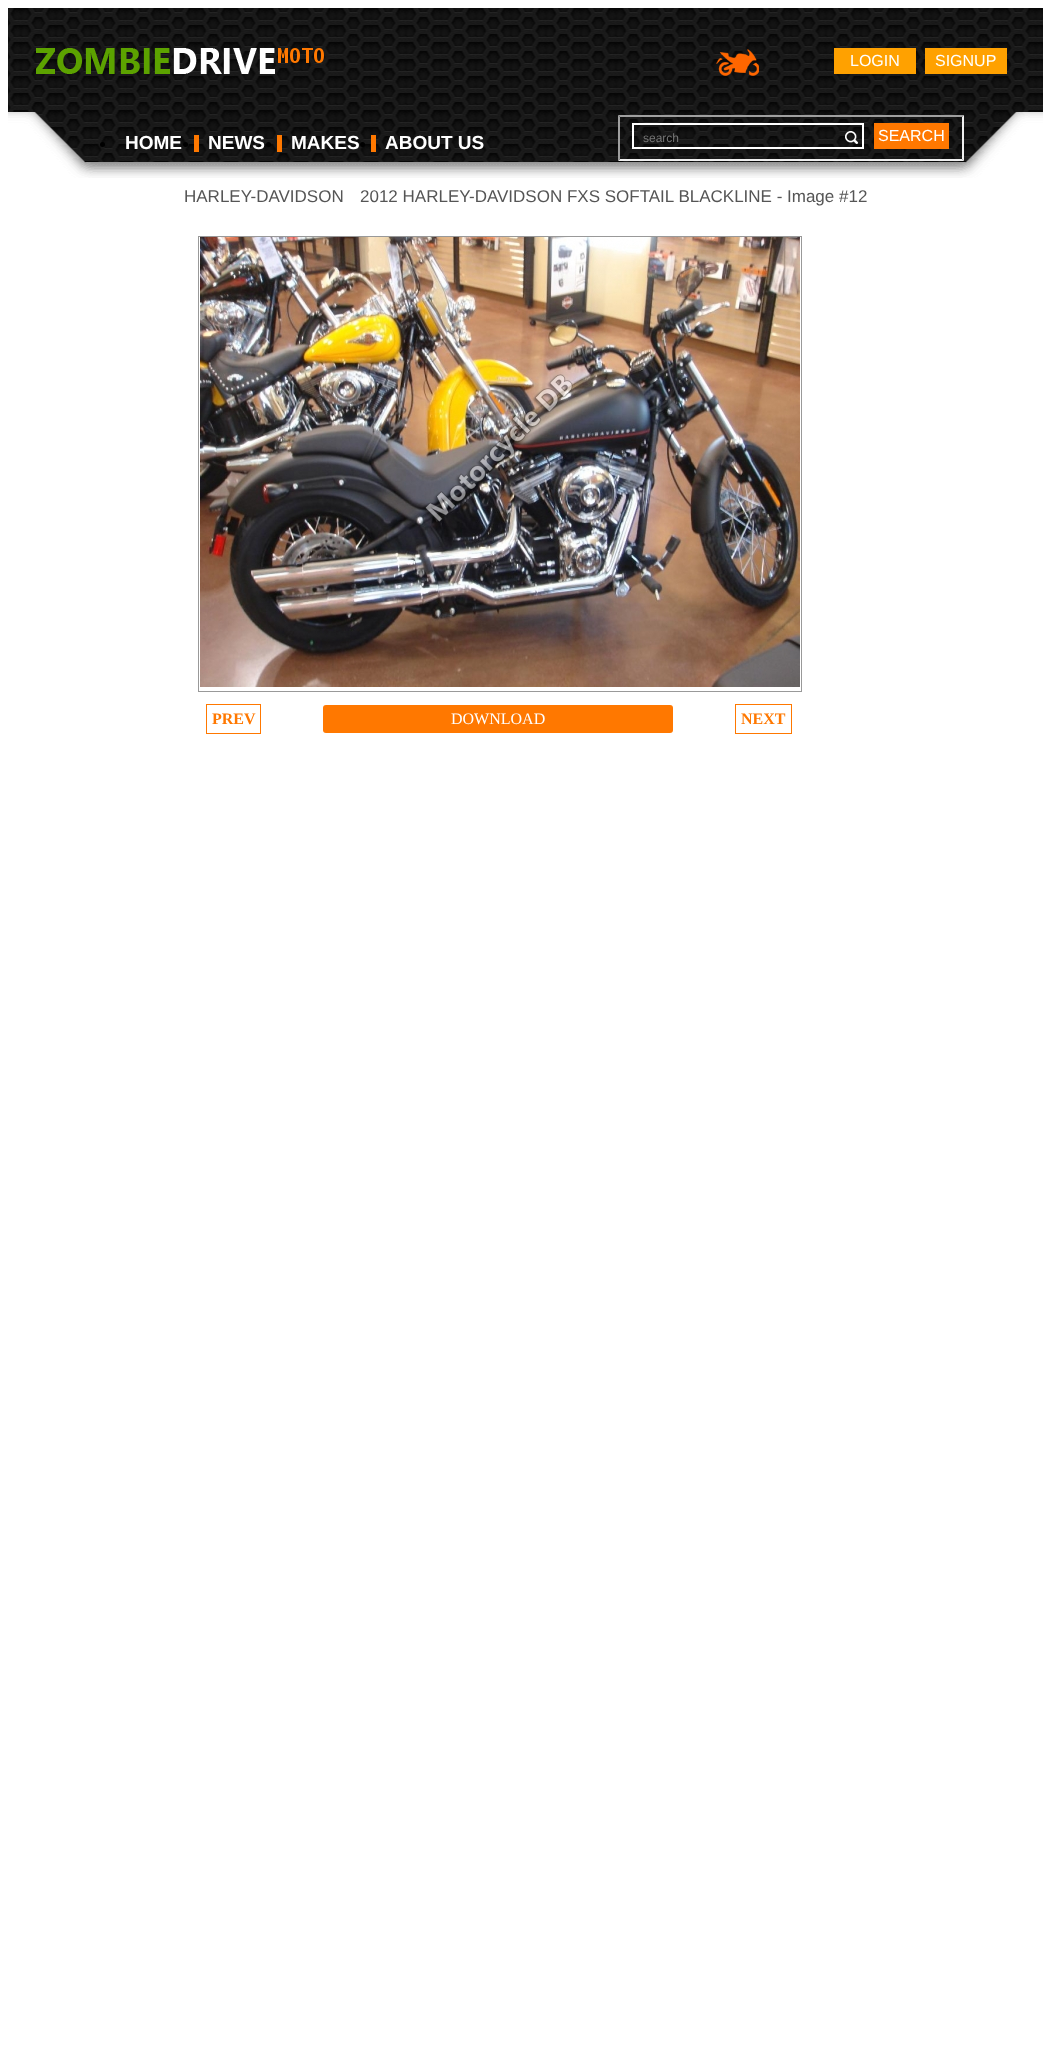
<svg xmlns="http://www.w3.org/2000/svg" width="1051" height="2046">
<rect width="100%" height="100%" fill="#fff"/>
<image x="8" y="8" width="1035" height="170" href="media/1.png"/>
<image x="36" y="48" width="288" height="26" href="media/2.png"/>
<image x="716" y="49" width="43" height="27" href="media/3.png"/>
<rect x="834" y="48" width="82" height="26" fill="#ffa100"/>
<text x="850" y="66" style="font-family:Liberation Sans;font-size:16px;fill:#fff">LOGIN</text>
<rect x="925" y="48" width="82" height="26" fill="#ffa100"/>
<text x="935" y="66" style="font-family:Liberation Sans;font-size:16px;fill:#fff">SIGNUP</text>
<circle cx="102.5" cy="144.5" r="2.5" fill="#000"/>
<text x="125" y="149" style="font-family:Liberation Sans;font-size:19px;font-weight:bold;fill:#fff">HOME</text>
<rect x="194" y="135" width="5" height="17" fill="#ff7800"/>
<circle cx="185.5" cy="144.5" r="2.5" fill="#000"/>
<text x="208" y="149" style="font-family:Liberation Sans;font-size:19px;font-weight:bold;fill:#fff">NEWS</text>
<rect x="277" y="135" width="5" height="17" fill="#ff7800"/>
<circle cx="268.5" cy="144.5" r="2.5" fill="#000"/>
<text x="291" y="149" style="font-family:Liberation Sans;font-size:19px;font-weight:bold;fill:#fff">MAKES</text>
<rect x="371" y="135" width="5" height="17" fill="#ff7800"/>
<circle cx="362.5" cy="144.5" r="2.5" fill="#000"/>
<text x="385" y="149" style="font-family:Liberation Sans;font-size:19px;font-weight:bold;fill:#fff">ABOUT US</text>
<path d="M618 115h346l-2 2h-342z" fill="#9f9f9f"/>
<path d="M964 115v46l-2-2v-42z" fill="#efefef"/>
<path d="M964 161h-346l2-2h342z" fill="#efefef"/>
<path d="M618 161v-46l2 2v42z" fill="#9f9f9f"/>
<rect x="633" y="124" width="230" height="24" fill="none" stroke="#fff" stroke-width="2"/>
<image x="845" y="131" width="13" height="13" href="media/4.png"/>
<text x="643" y="142" style="font-family:Liberation Sans;font-size:12px;fill:#757575">search</text>
<rect x="874" y="123" width="75" height="26" fill="#ff7800"/>
<text x="878" y="141" style="font-family:Liberation Sans;font-size:16px;fill:#fff">SEARCH</text>
<text x="184" y="202" style="font-family:Liberation Sans;font-size:17px;fill:#555">HARLEY-DAVIDSON</text>
<text x="360" y="202" style="font-family:Liberation Sans;font-size:17px;fill:#555">2012 HARLEY-DAVIDSON FXS SOFTAIL BLACKLINE - Image #12</text>
<rect x="198.5" y="236.5" width="603" height="455" fill="none" stroke="#999"/>
<image x="200" y="237" width="600" height="450" href="media/5.png"/>
<rect x="206.5" y="704.5" width="54" height="29" fill="none" stroke="#ff7800"/>
<text x="212" y="724" style="font-family:Liberation Serif;font-size:16px;font-weight:bold;fill:#ff7800">PREV</text>
<rect x="323" y="705" width="350" height="28" rx="3" fill="#ff7800"/>
<text x="451" y="724" style="font-family:Liberation Serif;font-size:16px;fill:#fff">DOWNLOAD</text>
<rect x="735.5" y="704.5" width="56" height="29" fill="none" stroke="#ff7800"/>
<text x="741" y="724" style="font-family:Liberation Serif;font-size:16px;font-weight:bold;fill:#ff7800">NEXT</text>
</svg>
